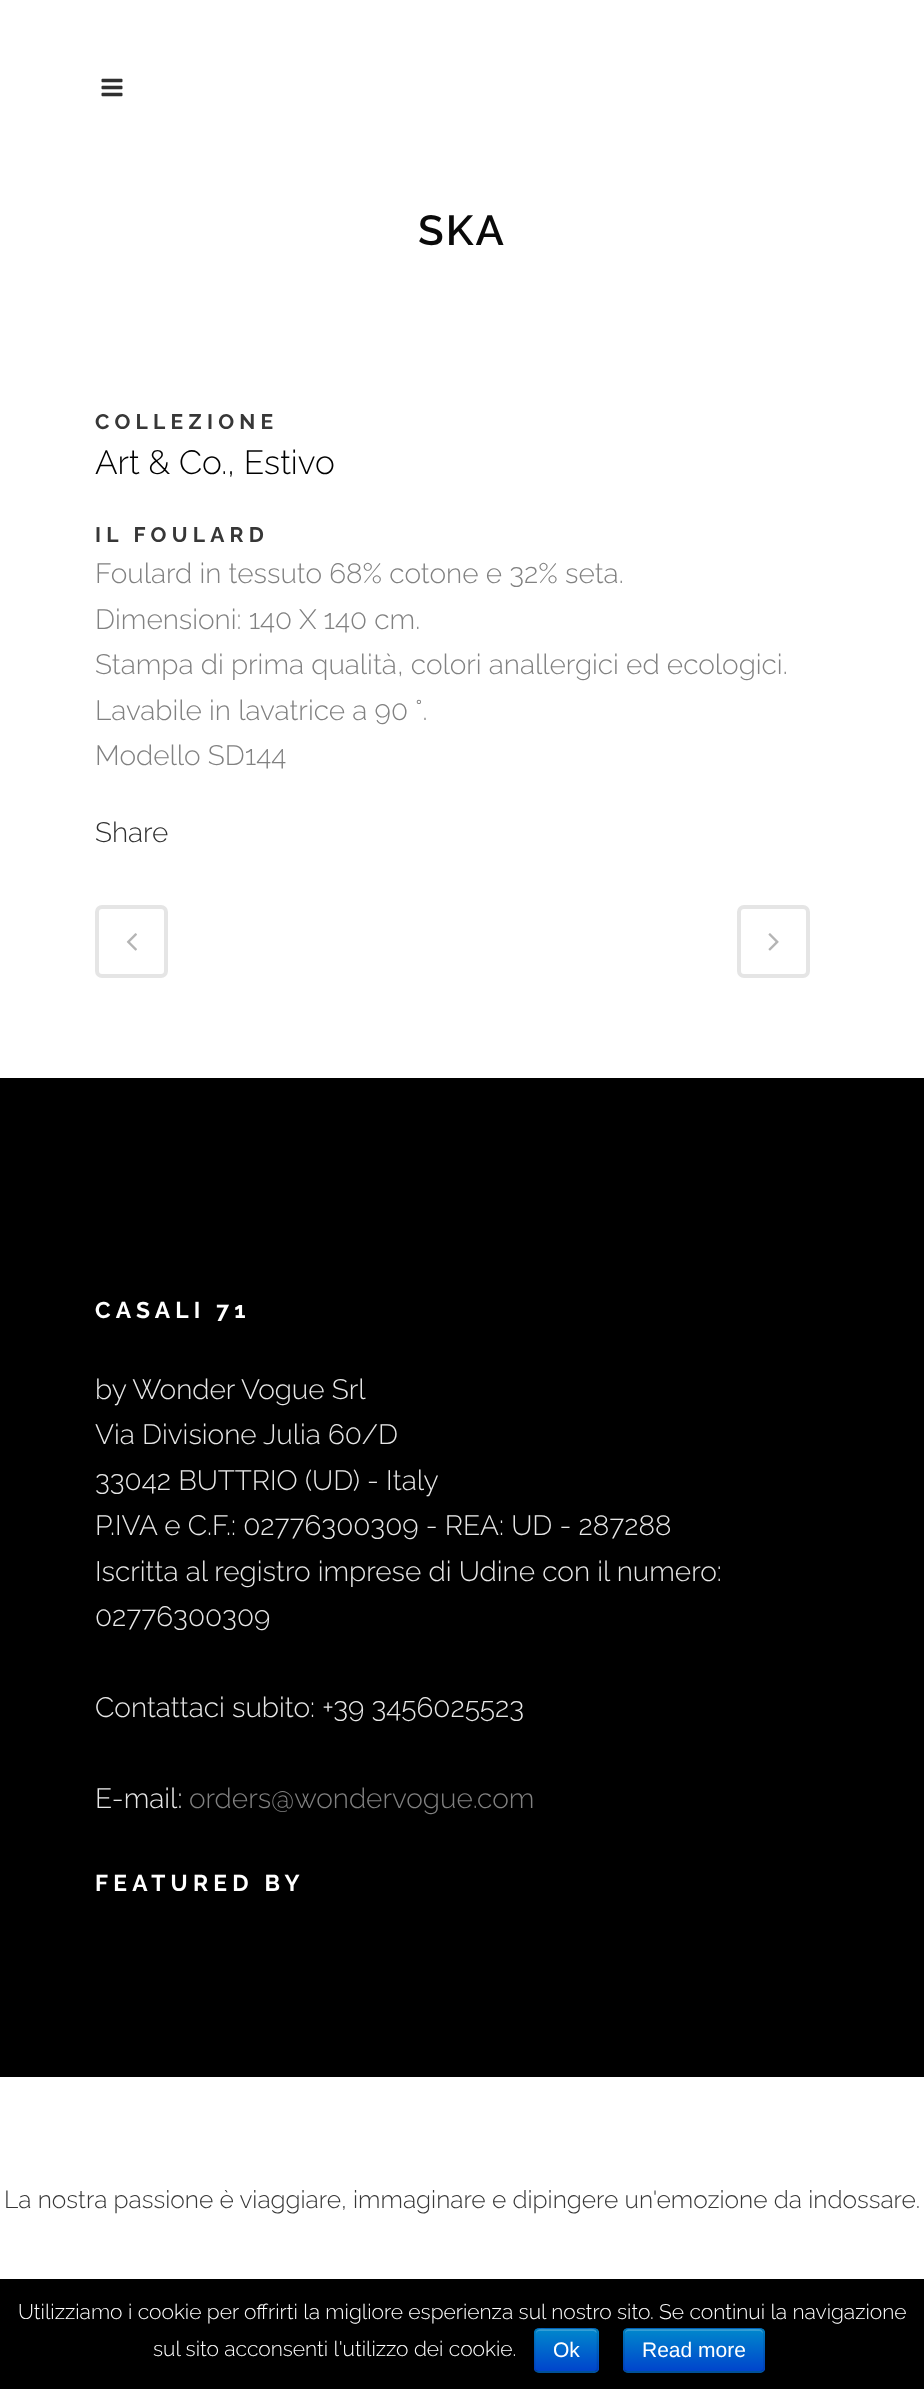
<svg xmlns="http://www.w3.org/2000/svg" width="924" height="2389">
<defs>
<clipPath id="clip1"><rect x="534" y="2328" width="65" height="45" rx="5"/></clipPath>
<linearGradient id="g1" gradientUnits="userSpaceOnUse" x1="566" y1="2329" x2="566" y2="2371"><stop offset="0" stop-color="#08c"/><stop offset="1" stop-color="#04c"/></linearGradient>
<clipPath id="clip2"><rect x="623" y="2328" width="142" height="45" rx="5"/></clipPath>
<linearGradient id="g2" gradientUnits="userSpaceOnUse" x1="694" y1="2329" x2="694" y2="2371"><stop offset="0" stop-color="#08c"/><stop offset="1" stop-color="#04c"/></linearGradient>
</defs>
<rect width="100%" height="100%" fill="#fff"/>
<image x="101" y="78" width="22" height="19" href="media/1.png"/>
<text x="418" y="245" style="font-family:Raleway;font-size:42px;font-weight:600;letter-spacing:2px;fill:#0a0a0a">SKA</text>
<text x="95" y="429" style="font-family:Raleway;font-size:21px;font-weight:bold;letter-spacing:5.25px;fill:#373737">COLLEZIONE</text>
<text x="95" y="474" style="font-family:Raleway;font-size:33.5px;font-weight:300;fill:#000">Art &amp; Co., Estivo</text>
<text x="95" y="542" style="font-family:Raleway;font-size:21px;font-weight:bold;letter-spacing:5.25px;fill:#373737">IL FOULARD</text>
<text x="95" y="583" style="font-family:Raleway;font-size:28px;font-weight:300;fill:#818181">Foulard in tessuto 68% cotone e 32% seta.</text>
<text x="95" y="629" style="font-family:Raleway;font-size:28px;font-weight:300;fill:#818181">Dimensioni: 140 X 140 cm.</text>
<text x="95" y="674" style="font-family:Raleway;font-size:28px;font-weight:300;fill:#818181">Stampa di prima qualità, colori anallergici ed ecologici.</text>
<text x="95" y="720" style="font-family:Raleway;font-size:28px;font-weight:300;fill:#818181">Lavabile in lavatrice a 90 °.</text>
<text x="95" y="765" style="font-family:Raleway;font-size:28px;font-weight:300;fill:#818181">Modello SD144</text>
<text x="95" y="842" style="font-family:Raleway;font-size:28px;font-weight:300;fill:#303030">Share</text>
<rect x="97" y="907" width="69" height="69" rx="5" fill="none" stroke="#e5e5e5" stroke-width="4"/>
<image x="126" y="933" width="11" height="18" href="media/2.png"/>
<rect x="739" y="907" width="69" height="69" rx="5" fill="none" stroke="#e5e5e5" stroke-width="4"/>
<image x="768" y="933" width="11" height="18" href="media/3.png"/>
<rect y="1078" width="924" height="999" fill="#000"/>
<text x="95" y="1318" style="font-family:Raleway;font-size:22.75px;font-weight:bold;letter-spacing:5.25px;fill:#fff">CASALI 71</text>
<text x="95" y="1399" style="font-family:Raleway;font-size:28px;font-weight:300;fill:#e8e8e8">by Wonder Vogue Srl</text>
<text x="95" y="1444" style="font-family:Raleway;font-size:28px;font-weight:300;fill:#e8e8e8">Via Divisione Julia 60/D</text>
<text x="95" y="1490" style="font-family:Raleway;font-size:28px;font-weight:300;fill:#e8e8e8">33042 BUTTRIO (UD) - Italy</text>
<text x="95" y="1535" style="font-family:Raleway;font-size:28px;font-weight:300;fill:#e8e8e8">P.IVA e C.F.: 02776300309 - REA: UD - 287288</text>
<text x="95" y="1581" style="font-family:Raleway;font-size:28px;font-weight:300;fill:#e8e8e8">Iscritta al registro imprese di Udine con il numero:</text>
<text x="95" y="1626" style="font-family:Raleway;font-size:28px;font-weight:300;fill:#e8e8e8">02776300309</text>
<text x="95" y="1717" style="font-family:Raleway;font-size:28px;font-weight:300;fill:#e8e8e8">Contattaci subito: +39 3456025523</text>
<text x="95" y="1808" style="font-family:Raleway;font-size:28px;font-weight:300;fill:#e8e8e8">E-mail:</text>
<text x="189" y="1808" style="font-family:Raleway;font-size:28px;font-weight:300;fill:#818181">orders@wondervogue.com</text>
<text x="95" y="1891" style="font-family:Raleway;font-size:22.75px;font-weight:bold;letter-spacing:5.25px;fill:#fff">FEATURED BY</text>
<text x="4" y="2208" style="font-family:Raleway;font-size:24.5px;font-weight:300;fill:#373737">La nostra passione è viaggiare, immaginare e dipingere un'emozione da indossare.</text>
<rect y="2279" width="924" height="110" fill="#000"/>
<text x="18" y="2319" style="font-family:Raleway;font-size:21px;font-weight:300;fill:#fff">Utilizziamo i cookie per offrirti la migliore esperienza sul nostro sito. Se continui la navigazione</text>
<text x="153" y="2356" style="font-family:Raleway;font-size:21px;font-weight:300;fill:#fff">sul sito acconsenti l'utilizzo dei cookie.</text>
<rect x="534" y="2328" width="65" height="45" rx="5" fill="#006dcc"/>
<g clip-path="url(#clip1)">
<rect x="534" y="2329" width="65" height="42" fill="url(#g1)"/>
</g>
<path d="M539 2331h54c2 0 4 2 4 3c0-7-8-5-13-5h-35c-5 0-13-2-13 5c0-1 1-3 3-3z" fill="#ffffff33"/>
<path d="M596.5 2371c-1 .5-2 1-3.5 1h-54c-1 0-2.5-.5-3-1" fill="none" stroke="#00000040" stroke-width="1.8"/>
<path d="M536 2371c-1-1-1.5-2-1.5-3v-35c0-1.5 .5-2.5 1.5-3.5c.5-.5 2-1 3-1h54c1.5 0 2.5 .5 3.5 1c.5 1 1 2 1 3.5v35c0 1-.5 2-1 3" fill="none" stroke="#0000001a" stroke-width="1.8"/>
<text x="553" y="2357" style="font-family:Liberation Sans;font-size:21px;fill:#fff">Ok</text>
<rect x="623" y="2328" width="142" height="45" rx="5" fill="#006dcc"/>
<g clip-path="url(#clip2)">
<rect x="623" y="2329" width="142" height="42" fill="url(#g2)"/>
</g>
<path d="M628 2331h132c1 0 3 2 3 3v-1c0-2-2-4-4-4h-130c-2 0-4 2-4 4v1c0-1 1-3 3-3z" fill="#ffffff33"/>
<path d="M762.5 2371l-3 1h-131.5l-3-1" fill="none" stroke="#00000040" stroke-width="1.8"/>
<path d="M625 2371c-2.5-3-1-12-1-15v-17.5c0-3.5-1-10 4-10h109.5c30 0 26.5-5.5 26.5 21.5v12c0 2.5 1 6.5-1.5 9" fill="none" stroke="#0000001a" stroke-width="1.8"/>
<text x="642" y="2357" style="font-family:Liberation Sans;font-size:21px;fill:#fff">Read more</text>
</svg>
